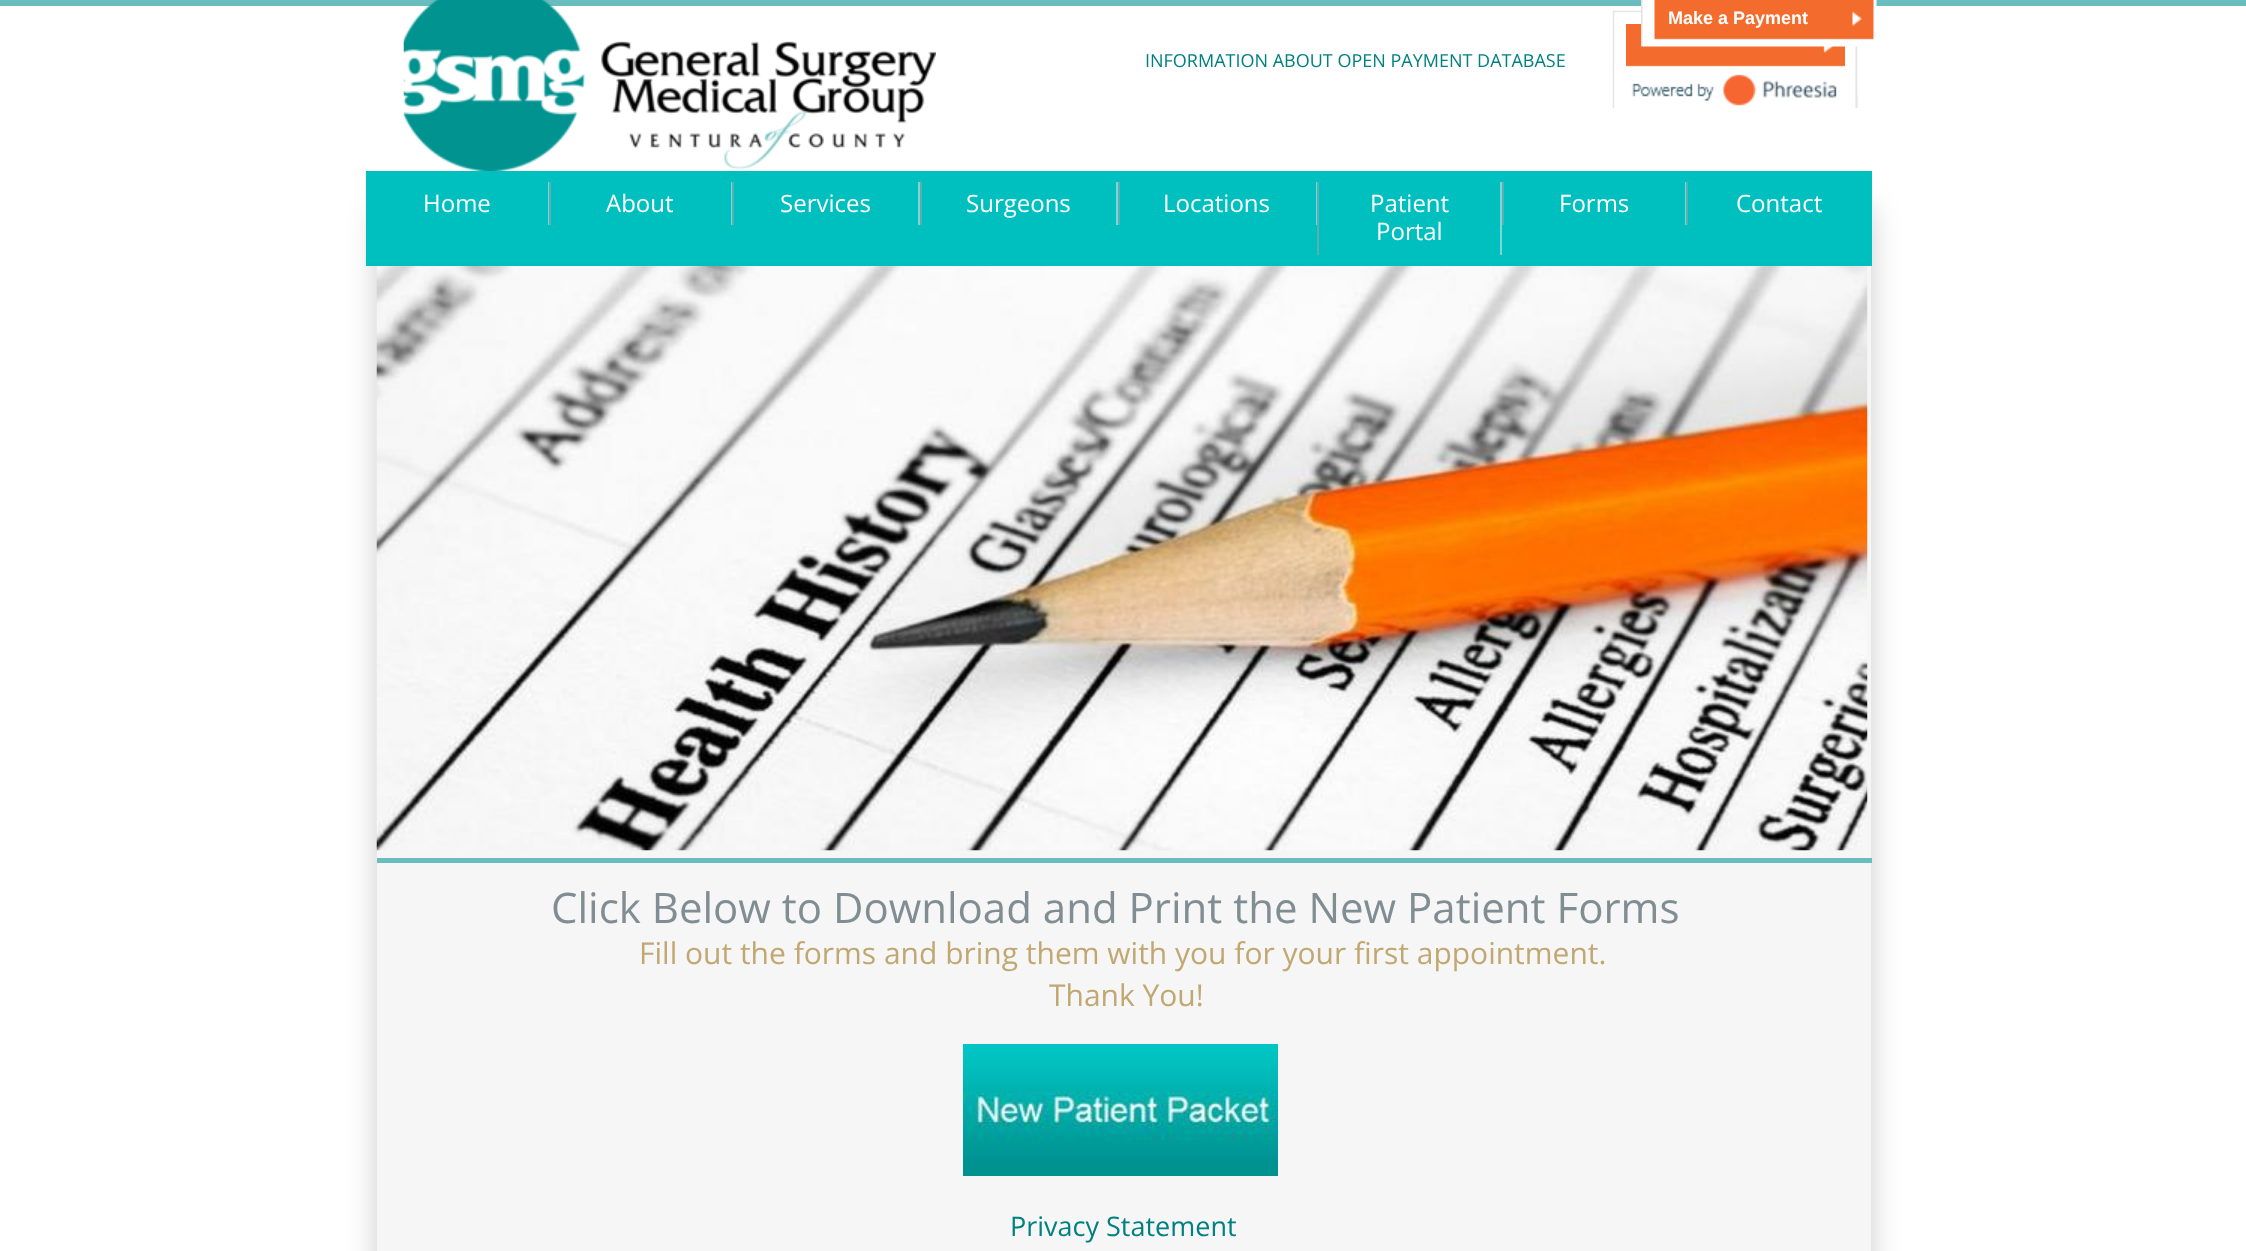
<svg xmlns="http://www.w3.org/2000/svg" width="2246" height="1251">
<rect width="100%" height="100%" fill="#69bdbe"/>
<rect y="6" width="2246" height="1245" fill="#fff"/>
<rect x="377" y="207" width="1494" height="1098" rx="9" fill="#00000033" filter="blur(15px)"/>
<rect x="377" y="266" width="1494" height="985" fill="#f6f6f6"/>
<image x="403" y="0" width="533" height="171" href="media/1.png"/>
<image x="1612" y="10" width="247" height="98" href="media/2.png"/>
<image x="1626" y="24" width="219" height="43" href="media/3.png"/>
<image x="1641" y="0" width="236" height="47" href="media/4.png"/>
<image x="1654" y="0" width="220" height="40" href="media/5.png"/>
<text x="1668" y="24" style="font-family:Liberation Sans;font-size:18px;font-weight:bold;fill:#fff">Make a Payment</text>
<text x="1145" y="67" style="font-family:Open Sans;font-size:18px;fill:#008080">INFORMATION ABOUT OPEN PAYMENT DATABASE</text>
<rect x="366" y="171" width="1506" height="95" fill="#00bfbf"/>
<rect x="548" y="182" width="1" height="43" fill="#7bd6d7"/>
<text x="423" y="212" style="font-family:Open Sans;font-size:24px;fill:#fff">Home</text>
<rect x="731" y="182" width="1" height="43" fill="#7bd6d7"/>
<rect x="549" y="182" width="2" height="43" fill="#5cafb0"/>
<text x="606" y="212" style="font-family:Open Sans;font-size:24px;fill:#fff">About</text>
<rect x="918" y="182" width="2" height="43" fill="#7bd6d7"/>
<rect x="732" y="182" width="2" height="43" fill="#5cafb0"/>
<text x="780" y="212" style="font-family:Open Sans;font-size:24px;fill:#fff">Services</text>
<rect x="1116" y="182" width="2" height="43" fill="#7bd6d7"/>
<rect x="920" y="182" width="2" height="43" fill="#5cafb0"/>
<text x="966" y="212" style="font-family:Open Sans;font-size:24px;fill:#fff">Surgeons</text>
<rect x="1316" y="182" width="1" height="43" fill="#7bd6d7"/>
<rect x="1118" y="182" width="2" height="43" fill="#5cafb0"/>
<text x="1163" y="212" style="font-family:Open Sans;font-size:24px;fill:#fff">Locations</text>
<rect x="1500" y="182" width="2" height="73" fill="#7bd6d7"/>
<rect x="1317" y="182" width="2" height="73" fill="#5cafb0"/>
<text x="1370" y="212" style="font-family:Open Sans;font-size:24px;fill:#fff">Patient</text>
<text x="1376" y="240" style="font-family:Open Sans;font-size:24px;fill:#fff">Portal</text>
<rect x="1685" y="182" width="1" height="43" fill="#7bd6d7"/>
<rect x="1502" y="182" width="2" height="43" fill="#5cafb0"/>
<text x="1559" y="212" style="font-family:Open Sans;font-size:24px;fill:#fff">Forms</text>
<rect x="1686" y="182" width="2" height="43" fill="#5cafb0"/>
<text x="1736" y="212" style="font-family:Open Sans;font-size:24px;fill:#fff">Contact</text>
<image x="376" y="266" width="1492" height="585" href="media/6.png"/>
<rect x="377" y="858" width="1495" height="5" fill="#69bdbe"/>
<text x="551" y="923" style="font-family:Open Sans;font-size:42px;fill:#808e94">Click Below to Download and Print the New Patient Forms</text>
<text x="639" y="964" style="font-family:Open Sans;font-size:30px;fill:#c1a872">Fill out the forms and bring them with you for your first appointment.</text>
<text x="1049" y="1006" style="font-family:Open Sans;font-size:30px;fill:#c1a872">Thank You!</text>
<image x="963" y="1044" width="315" height="132" href="media/7.png"/>
<text x="1010" y="1236" style="font-family:Open Sans;font-size:27px;fill:#008080">Privacy Statement</text>
</svg>
